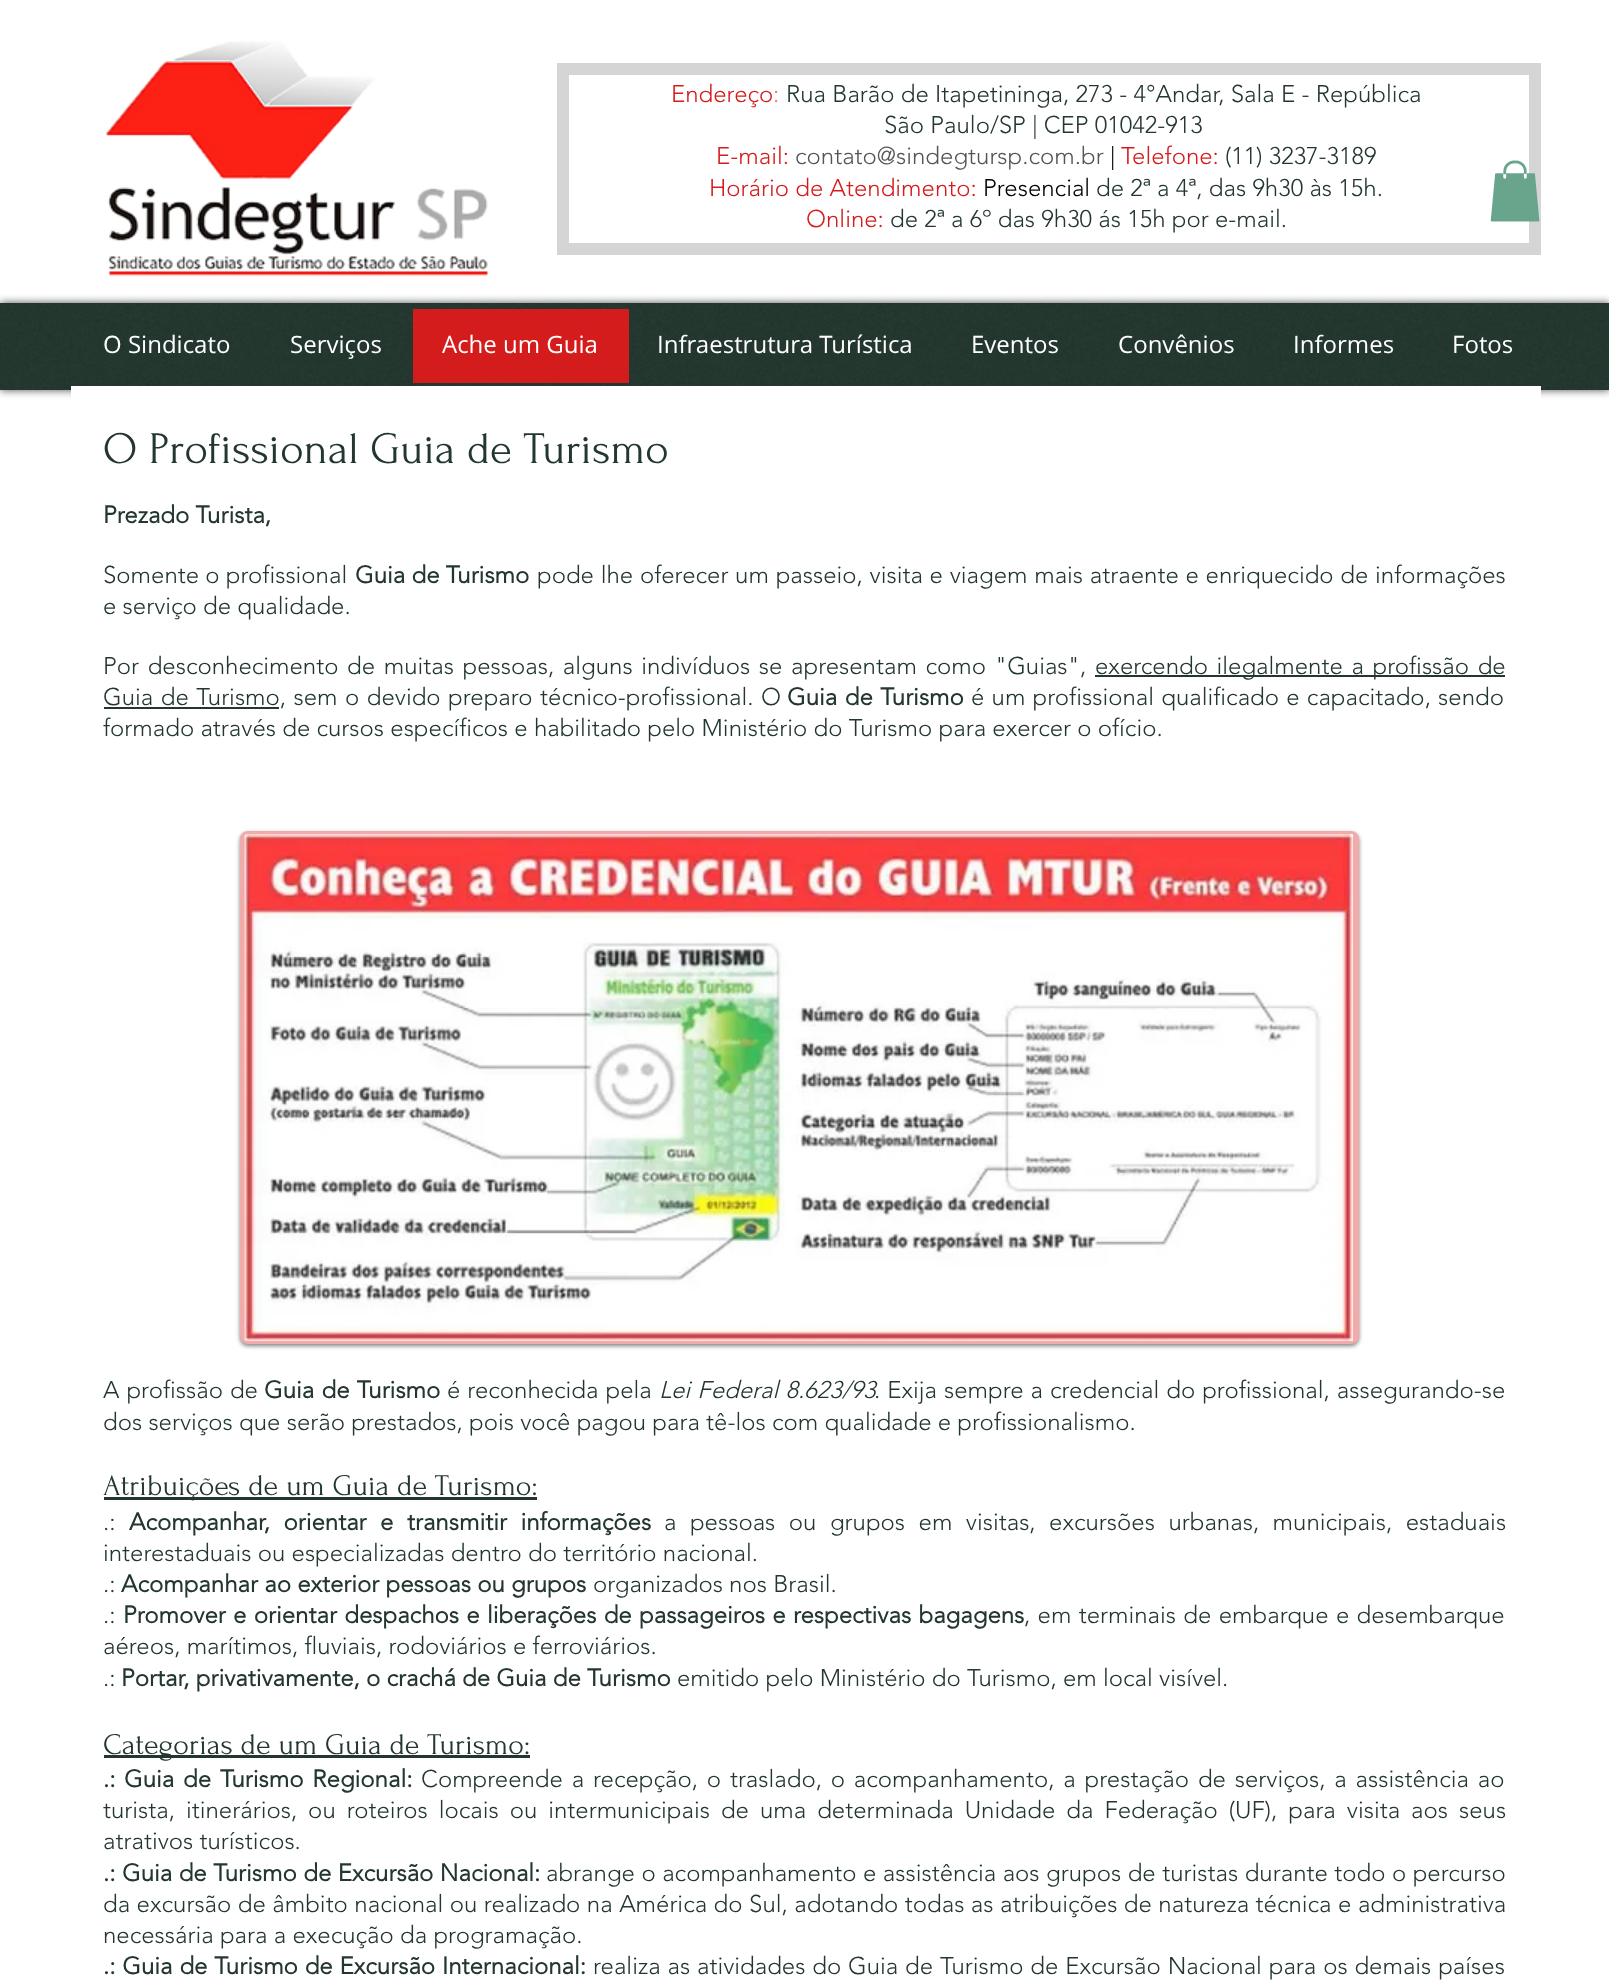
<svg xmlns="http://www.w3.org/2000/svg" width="1609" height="1980">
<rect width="100%" height="100%" fill="#fff"/>
<image x="106" y="41" width="383" height="236" href="media/1.png"/>
<rect x="563" y="69" width="972" height="180" fill="none" stroke="#d5d5d5" stroke-width="12"/>
<text x="671" y="102" style="font-family:'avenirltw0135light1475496';font-size:24px;font-weight:300;fill:#d51c1c">Endereço</text>
<text x="773" y="102" style="font-family:'avenirltw0135light1475496';font-size:24px;font-weight:300;fill:#e38080">:</text>
<text x="786" y="102" style="font-family:'avenirltw0135light1475496';font-size:24px;font-weight:300;fill:#23372f">Rua Barão de Itapetininga, 273 - 4°Andar, Sala E - República</text>
<text x="884" y="133" style="font-family:'avenirltw0135light1475496';font-size:24px;font-weight:300;fill:#23372f">São Paulo/SP | CEP 01042-913</text>
<text x="716" y="164" style="font-family:'avenirltw0135light1475496';font-size:24px;font-weight:300;fill:#d51c1c">E-mail:</text>
<text x="795" y="164" style="font-family:'avenirltw0135light1475496';font-size:24px;font-weight:300;fill:#555">contato@sindegtursp.com.br</text>
<text x="1110" y="164" style="font-family:'avenirltw0135light1475496';font-size:24px;font-weight:300;fill:#000">|</text>
<text x="1121" y="164" style="font-family:'avenirltw0135light1475496';font-size:24px;font-weight:300;fill:#d51c1c">Telefone:</text>
<text x="1225" y="164" style="font-family:'avenirltw0135light1475496';font-size:24px;font-weight:300;fill:#23372f">(11) 3237-3189</text>
<text x="709" y="196" style="font-family:'avenirltw0135light1475496';font-size:24px;font-weight:300;fill:#d51c1c">Horário de Atendimento:</text>
<text x="983" y="196" style="font-family:'avenirltw0135light1475496';font-size:24px;font-weight:300;fill:#000">Presencial</text>
<text x="1096" y="196" style="font-family:'avenirltw0135light1475496';font-size:24px;font-weight:300;fill:#23372f">de 2ª a 4ª, das 9h30 às 15h.</text>
<text x="806" y="227" style="font-family:'avenirltw0135light1475496';font-size:24px;font-weight:300;fill:#d51c1c">Online:</text>
<text x="890" y="227" style="font-family:'avenirltw0135light1475496';font-size:24px;font-weight:300;fill:#23372f">de 2ª a 6º das 9h30 ás 15h por e-mail.</text>
<image x="1490" y="160" width="50" height="62" href="media/2.png"/>
<rect y="303" width="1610" height="87" fill="#000000b3" filter="blur(4px)"/>
<rect y="303" width="1609" height="87" fill="#23372f"/>
<image x="2" y="303" width="1606" height="87" href="media/3.png"/>
<text x="103" y="353" style="font-family:Open Sans;font-size:24px;fill:#fff">O Sindicato</text>
<text x="290" y="353" style="font-family:Open Sans;font-size:24px;fill:#fff">Serviços</text>
<rect x="413" y="309" width="216" height="74" fill="#d51c1c"/>
<text x="442" y="353" style="font-family:Open Sans;font-size:24px;fill:#fff">Ache um Guia</text>
<text x="657" y="353" style="font-family:Open Sans;font-size:24px;fill:#fff">Infraestrutura Turística</text>
<text x="971" y="353" style="font-family:Open Sans;font-size:24px;fill:#fff">Eventos</text>
<text x="1118" y="353" style="font-family:Open Sans;font-size:24px;fill:#fff">Convênios</text>
<text x="1293" y="353" style="font-family:Open Sans;font-size:24px;fill:#fff">Informes</text>
<text x="1452" y="353" style="font-family:Open Sans;font-size:24px;fill:#fff">Fotos</text>
<rect x="71" y="386" width="1470" height="13" fill="#fff"/>
<text x="103" y="463" style="font-family:Forum;font-size:45px;fill:#23372f">O Profissional Guia de Turismo</text>
<text x="103" y="523" style="font-family:'avenirltw0135light1475496';font-size:24px;font-weight:bold;fill:#23372f">Prezado Turista,</text>
<text x="103" y="583" style="font-family:'avenirltw0135light1475496';font-size:24px;font-weight:300;fill:#23372f">Somente o profissional</text>
<text x="355" y="583" style="font-family:'avenirltw0135light1475496';font-size:24px;font-weight:bold;fill:#23372f">Guia de Turismo</text>
<text x="537" y="583" word-spacing="0.5" style="font-family:'avenirltw0135light1475496';font-size:24px;font-weight:300;fill:#23372f">pode lhe oferecer um passeio, visita e viagem mais atraente e enriquecido de informações</text>
<text x="103" y="614" style="font-family:'avenirltw0135light1475496';font-size:24px;font-weight:300;fill:#23372f">e serviço de qualidade.</text>
<text x="103" y="674" word-spacing="2.4" style="font-family:'avenirltw0135light1475496';font-size:24px;font-weight:300;fill:#23372f">Por desconhecimento de muitas pessoas, alguns indivíduos se apresentam como "Guias",</text>
<rect x="1095" y="675" width="410" height="2" fill="#23372f"/>
<text x="1095" y="674" word-spacing="2.4" style="font-family:'avenirltw0135light1475496';font-size:24px;font-weight:300;fill:#23372f">exercendo ilegalmente a profissão de</text>
<rect x="104" y="707" width="175" height="2" fill="#23372f"/>
<text x="103" y="705" word-spacing="1.25" style="font-family:'avenirltw0135light1475496';font-size:24px;font-weight:300;fill:#23372f">Guia de Turismo, sem o devido preparo técnico-profissional. O</text>
<text x="787" y="705" word-spacing="1.25" style="font-family:'avenirltw0135light1475496';font-size:24px;font-weight:bold;fill:#23372f">Guia de Turismo</text>
<text x="971" y="705" word-spacing="1" style="font-family:'avenirltw0135light1475496';font-size:24px;font-weight:300;fill:#23372f">é um profissional qualificado e capacitado, sendo</text>
<text x="103" y="736" style="font-family:'avenirltw0135light1475496';font-size:24px;font-weight:300;fill:#23372f">formado através de cursos específicos e habilitado pelo Ministério do Turismo para exercer o ofício.</text>
<rect x="240" y="833" width="1119" height="513" rx="8" fill="#00000080" filter="blur(2px)"/>
<rect x="241.5" y="832.5" width="1116" height="510" rx="6.5" fill="#f1abab" stroke="#f1abab" stroke-width="3"/>
<image x="244" y="834" width="1109" height="507" href="media/4.png"/>
<text x="103" y="1398" word-spacing="0.75" style="font-family:'avenirltw0135light1475496';font-size:24px;font-weight:300;fill:#23372f">A profissão de</text>
<text x="264" y="1398" word-spacing="1" style="font-family:'avenirltw0135light1475496';font-size:24px;font-weight:bold;fill:#23372f">Guia de Turismo</text>
<text x="447" y="1398" word-spacing="0.75" style="font-family:'avenirltw0135light1475496';font-size:24px;font-weight:300;fill:#23372f">é reconhecida pela</text>
<text x="659" y="1398" word-spacing="1" style="font-family:'avenirltw0135light1475496';font-size:24px;font-weight:300;font-style:italic;fill:#23372f">Lei Federal 8.623/93</text>
<text x="874" y="1398" word-spacing="0.75" style="font-family:'avenirltw0135light1475496';font-size:24px;font-weight:300;fill:#23372f">. Exija sempre a credencial do profissional, assegurando-se</text>
<text x="103" y="1430" style="font-family:'avenirltw0135light1475496';font-size:24px;font-weight:300;fill:#23372f">dos serviços que serão prestados, pois você pagou para tê-los com qualidade e profissionalismo.</text>
<rect x="104" y="1497" width="433" height="3" fill="#23372f"/>
<text x="103" y="1495" style="font-family:Forum;font-size:30px;fill:#23372f">Atribuições de um Guia de Turismo:</text>
<text x="103" y="1530" style="font-family:'avenirltw0135light1475496';font-size:24px;font-weight:300;fill:#23372f">.:</text>
<text x="129" y="1530" word-spacing="7.25" style="font-family:'avenirltw0135light1475496';font-size:24px;font-weight:bold;fill:#23372f">Acompanhar, orientar e transmitir informações</text>
<text x="664" y="1530" word-spacing="7.25" style="font-family:'avenirltw0135light1475496';font-size:24px;font-weight:300;fill:#23372f">a pessoas ou grupos em visitas, excursões urbanas, municipais, estaduais</text>
<text x="103" y="1561" style="font-family:'avenirltw0135light1475496';font-size:24px;font-weight:300;fill:#23372f">interestaduais ou especializadas dentro do território nacional.</text>
<text x="103" y="1592" style="font-family:'avenirltw0135light1475496';font-size:24px;font-weight:300;fill:#23372f">.:</text>
<text x="121" y="1592" style="font-family:'avenirltw0135light1475496';font-size:24px;font-weight:bold;fill:#23372f">Acompanhar ao exterior pessoas ou grupos</text>
<text x="593" y="1592" style="font-family:'avenirltw0135light1475496';font-size:24px;font-weight:300;fill:#23372f">organizados nos Brasil.</text>
<text x="103" y="1623" style="font-family:'avenirltw0135light1475496';font-size:24px;font-weight:300;fill:#23372f">.:</text>
<text x="123" y="1623" word-spacing="1.1" style="font-family:'avenirltw0135light1475496';font-size:24px;font-weight:bold;fill:#23372f">Promover e orientar despachos e liberações de passageiros e respectivas bagagens</text>
<text x="1024" y="1623" word-spacing="1.1" style="font-family:'avenirltw0135light1475496';font-size:24px;font-weight:300;fill:#23372f">, em terminais de embarque e desembarque</text>
<text x="103" y="1654" style="font-family:'avenirltw0135light1475496';font-size:24px;font-weight:300;fill:#23372f">aéreos, marítimos, fluviais, rodoviários e ferroviários.</text>
<text x="103" y="1686" style="font-family:'avenirltw0135light1475496';font-size:24px;font-weight:300;fill:#23372f">.:</text>
<text x="121" y="1686" style="font-family:'avenirltw0135light1475496';font-size:24px;font-weight:bold;fill:#23372f">Portar, privativamente, o crachá de Guia de Turismo</text>
<text x="677" y="1686" style="font-family:'avenirltw0135light1475496';font-size:24px;font-weight:300;fill:#23372f">emitido pelo Ministério do Turismo, em local visível.</text>
<rect x="104" y="1755" width="426" height="3" fill="#23372f"/>
<text x="103" y="1754" style="font-family:Forum;font-size:30px;fill:#23372f">Categorias de um Guia de Turismo:</text>
<text x="103" y="1787" style="font-family:'avenirltw0135light1475496';font-size:24px;font-weight:bold;fill:#23372f">.:</text>
<text x="124" y="1787" word-spacing="2.6" style="font-family:'avenirltw0135light1475496';font-size:24px;font-weight:bold;fill:#23372f">Guia de Turismo Regional:</text>
<text x="421" y="1787" word-spacing="2.6" style="font-family:'avenirltw0135light1475496';font-size:24px;font-weight:300;fill:#23372f">Compreende a recepção, o traslado, o acompanhamento, a prestação de serviços, a assistência ao</text>
<text x="103" y="1818" word-spacing="4.75" style="font-family:'avenirltw0135light1475496';font-size:24px;font-weight:300;fill:#23372f">turista, itinerários, ou roteiros locais ou intermunicipais de uma determinada Unidade da Federação (UF), para visita aos seus</text>
<text x="103" y="1849" style="font-family:'avenirltw0135light1475496';font-size:24px;font-weight:300;fill:#23372f">atrativos turísticos.</text>
<text x="103" y="1881" word-spacing="0.25" style="font-family:'avenirltw0135light1475496';font-size:24px;font-weight:bold;fill:#23372f">.: Guia de Turismo de Excursão Nacional:</text>
<text x="546" y="1881" word-spacing="0.25" style="font-family:'avenirltw0135light1475496';font-size:24px;font-weight:300;fill:#23372f">abrange o acompanhamento e assistência aos grupos de turistas durante todo o percurso</text>
<text x="103" y="1912" word-spacing="0.25" style="font-family:'avenirltw0135light1475496';font-size:24px;font-weight:300;fill:#23372f">da excursão de âmbito nacional ou realizado na América do Sul, adotando todas as atribuições de natureza técnica e administrativa</text>
<text x="103" y="1943" style="font-family:'avenirltw0135light1475496';font-size:24px;font-weight:300;fill:#23372f">necessária para a execução da programação.</text>
<text x="103" y="1974" word-spacing="0.6" style="font-family:'avenirltw0135light1475496';font-size:24px;font-weight:bold;fill:#23372f">.: Guia de Turismo de Excursão Internacional:</text>
<text x="593" y="1974" word-spacing="0.6" style="font-family:'avenirltw0135light1475496';font-size:24px;font-weight:300;fill:#23372f">realiza as atividades do Guia de Turismo de Excursão Nacional para os demais países</text>
</svg>
